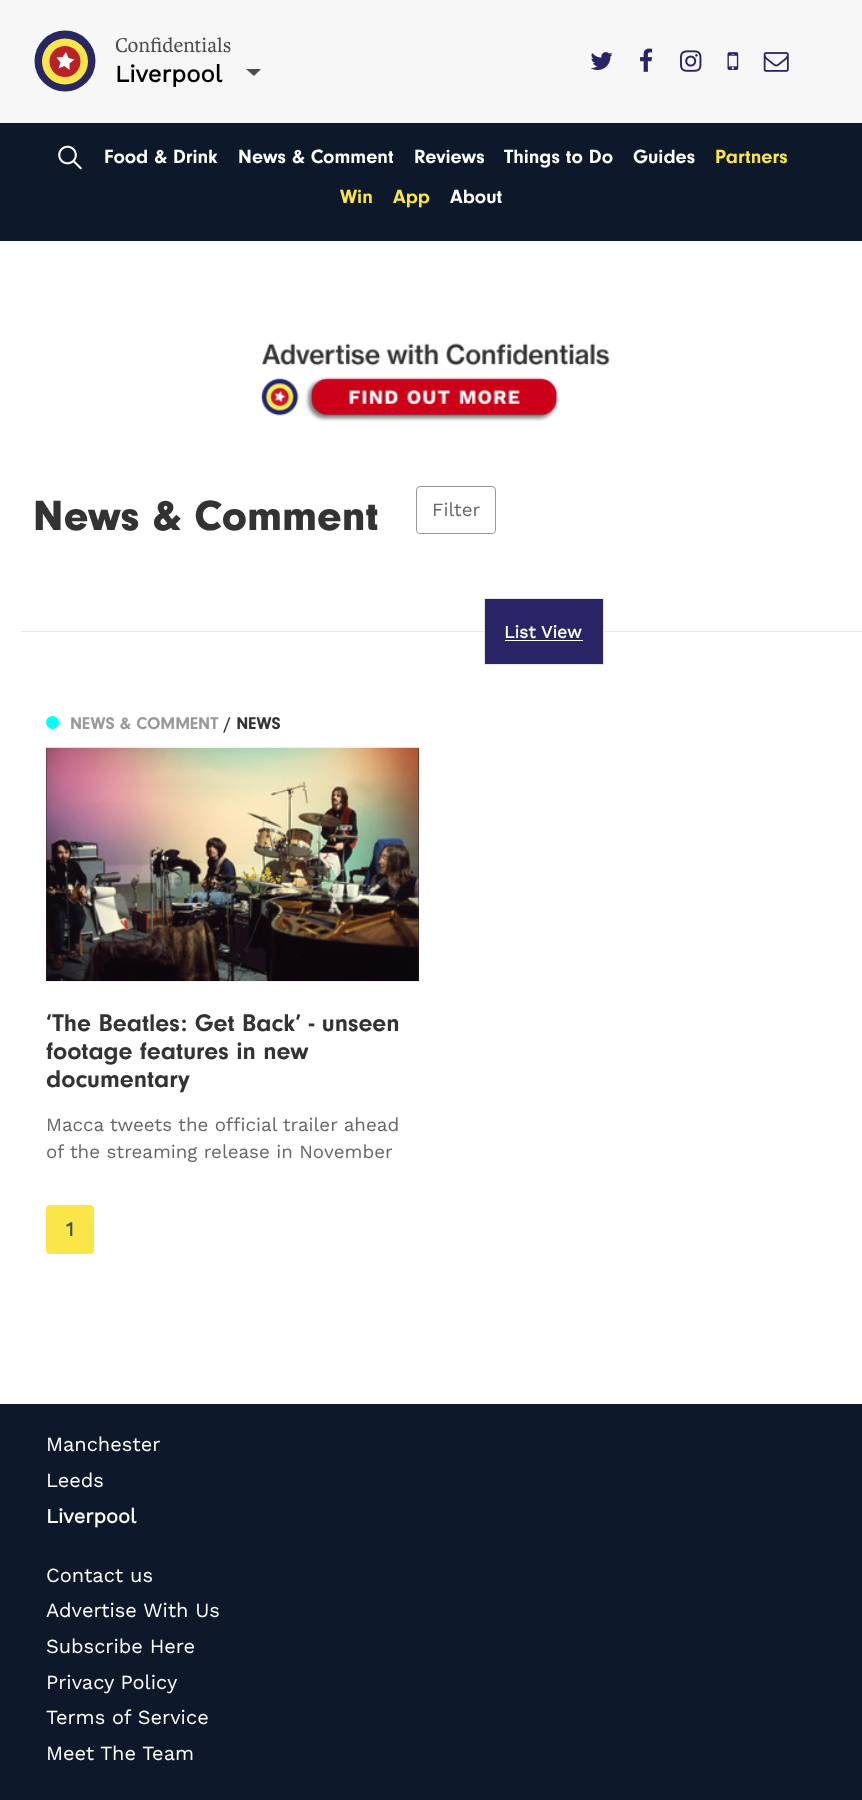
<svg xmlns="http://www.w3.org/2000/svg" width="862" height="1800">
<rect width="100%" height="100%" fill="#fff"/>
<rect width="862" height="123" fill="#f7f7f7"/>
<circle cx="65" cy="61" r="30.5" fill="#282762"/>
<circle cx="65" cy="61.5" r="23" fill="#fbe649"/>
<circle cx="65" cy="61.5" r="15.5" fill="#b92327"/>
<path d="M62.5 57l3.5-5l2.5 6l6 1.5l-5 4v6.5l-5-4l-6 2.5l2-6l-4-5" fill="#fff"/>
<text x="115" y="52" style="font-family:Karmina;font-size:21.25px;fill:#4d4d4d">Confidentials</text>
<text x="115" y="82" style="font-family:Work Sans;font-size:23.75px;font-weight:bold;fill:#000">Liverpool</text>
<path d="M246 69h15l-7 7z" fill="#4d4d4d"/>
<image x="590" y="52" width="23" height="18" href="media/1.png"/>
<image x="640" y="48" width="13" height="24" href="media/2.png"/>
<image x="680" y="50" width="22" height="22" href="media/3.png"/>
<image x="727" y="52" width="12" height="18" href="media/4.png"/>
<image x="763" y="52" width="26" height="20" href="media/5.png"/>
<rect y="123" width="862" height="118" fill="#0d182a"/>
<image x="58" y="145" width="24" height="25" href="media/6.png"/>
<text x="104" y="163" style="font-family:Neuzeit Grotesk;font-size:20px;font-weight:bold;fill:#fff">Food &amp; Drink</text>
<text x="238" y="163" style="font-family:Neuzeit Grotesk;font-size:20px;font-weight:bold;fill:#fff">News &amp; Comment</text>
<text x="414" y="163" style="font-family:Neuzeit Grotesk;font-size:20px;font-weight:bold;fill:#fff">Reviews</text>
<text x="504" y="163" style="font-family:Neuzeit Grotesk;font-size:20px;font-weight:bold;fill:#fff">Things to Do</text>
<text x="633" y="163" style="font-family:Neuzeit Grotesk;font-size:20px;font-weight:bold;fill:#fff">Guides</text>
<text x="715" y="163" style="font-family:Neuzeit Grotesk;font-size:20px;font-weight:bold;fill:#fbe64a">Partners</text>
<text x="340" y="203" style="font-family:Neuzeit Grotesk;font-size:20px;font-weight:bold;fill:#fbe64a">Win</text>
<text x="393" y="203" style="font-family:Neuzeit Grotesk;font-size:20px;font-weight:bold;fill:#fbe64a">App</text>
<text x="450" y="203" style="font-family:Neuzeit Grotesk;font-size:20px;font-weight:bold;fill:#fff">About</text>
<image x="260" y="343" width="350" height="79" href="media/7.png"/>
<text x="33" y="530" style="font-family:Neuzeit Grotesk;font-size:43.75px;font-weight:900;fill:#333">News &amp; Comment</text>
<rect x="416.5" y="486.5" width="79" height="47" rx="3.5" fill="none" stroke="#999"/>
<text x="432" y="516" style="font-family:Work Sans;font-size:18.75px;fill:#666">Filter</text>
<rect x="21" y="631" width="841" height="1" fill="#e6e6e6"/>
<rect x="484.5" y="598.5" width="119" height="66" fill="none" stroke="#e6e6e6"/>
<rect x="485" y="599" width="118" height="65" fill="#292466"/>
<text x="504" y="638" style="font-family:Work Sans;font-size:17.5px;font-weight:bold;fill:#fff">List View</text>
<rect x="505" y="640" width="78" height="1" fill="#fff"/>
<circle cx="52.5" cy="722.5" r="6.5" fill="#0ff"/>
<text x="70" y="729" style="font-family:Neuzeit Grotesk;font-size:17.5px;font-weight:bold;fill:#999">NEWS &amp; COMMENT</text>
<text x="224" y="729" style="font-family:Neuzeit Grotesk;font-size:17.5px;font-weight:bold;fill:#333">/ NEWS</text>
<rect x="46" y="748" width="373" height="233" fill="#2e2423"/>
<image x="46" y="747" width="373" height="235" href="media/8.png"/>
<text x="46" y="1031" style="font-family:Neuzeit Grotesk;font-size:25px;font-weight:bold;fill:#333">‘The Beatles: Get Back’ - unseen</text>
<text x="46" y="1059" style="font-family:Neuzeit Grotesk;font-size:25px;font-weight:bold;fill:#333">footage features in new</text>
<text x="46" y="1087" style="font-family:Neuzeit Grotesk;font-size:25px;font-weight:bold;fill:#333">documentary</text>
<text x="46" y="1131" style="font-family:Work Sans;font-size:18.75px;fill:#666">Macca tweets the official trailer ahead</text>
<text x="46" y="1158" style="font-family:Work Sans;font-size:18.75px;fill:#666">of the streaming release in November</text>
<rect x="46" y="1205" width="48" height="49" rx="4" fill="#fbe64a"/>
<text x="66" y="1236" style="font-family:Work Sans;font-size:20px;font-weight:bold;fill:#4d4d4d">1</text>
<rect y="1404" width="862" height="396" fill="#0d182a"/>
<text x="46" y="1451" style="font-family:Work Sans;font-size:20px;fill:#fff">Manchester</text>
<text x="46" y="1487" style="font-family:Work Sans;font-size:20px;fill:#fff">Leeds</text>
<text x="46" y="1523" style="font-family:Work Sans;font-size:20px;font-weight:bold;fill:#fff">Liverpool</text>
<text x="46" y="1582" style="font-family:Work Sans;font-size:20px;fill:#fff">Contact us</text>
<text x="46" y="1617" style="font-family:Work Sans;font-size:20px;fill:#fff">Advertise With Us</text>
<text x="46" y="1653" style="font-family:Work Sans;font-size:20px;fill:#fff">Subscribe Here</text>
<text x="46" y="1689" style="font-family:Work Sans;font-size:20px;fill:#fff">Privacy Policy</text>
<text x="46" y="1724" style="font-family:Work Sans;font-size:20px;fill:#fff">Terms of Service</text>
<text x="46" y="1760" style="font-family:Work Sans;font-size:20px;fill:#fff">Meet The Team</text>
</svg>
